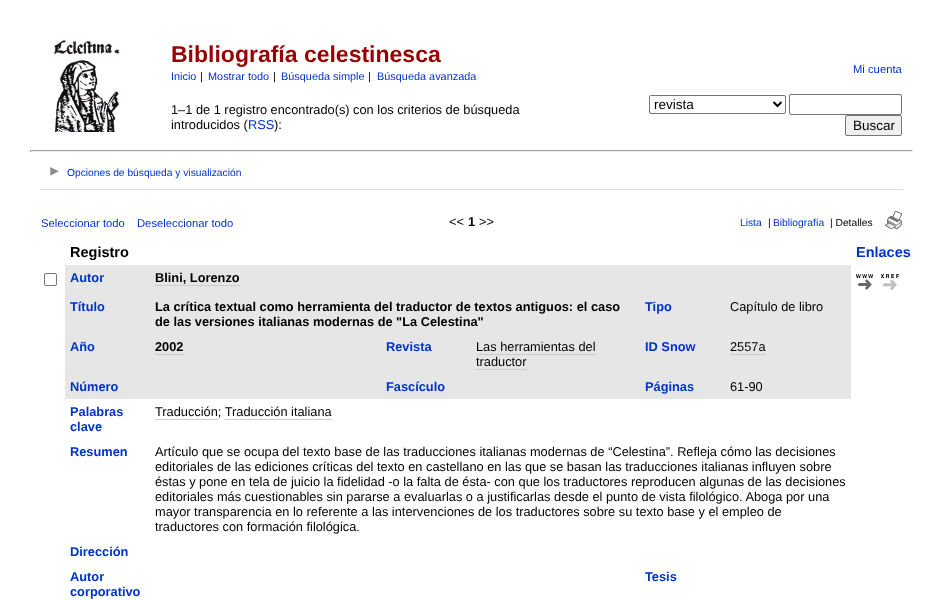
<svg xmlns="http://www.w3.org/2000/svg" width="943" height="600">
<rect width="100%" height="100%" fill="#fff"/>
<image x="51" y="38" width="70" height="94" href="media/1.png"/>
<text x="171" y="62" style="font-family:Liberation Sans;font-size:23px;font-weight:bold;fill:#900">Bibliografía celestinesca</text>
<text x="171" y="80" style="font-family:Liberation Sans;font-size:10.9px;fill:#03c">Inicio</text>
<text x="200" y="80" style="font-family:Liberation Sans;font-size:10.9px;fill:#000">|</text>
<text x="208" y="80" style="font-family:Liberation Sans;font-size:10.9px;fill:#03c">Mostrar todo</text>
<text x="273" y="80" style="font-family:Liberation Sans;font-size:10.9px;fill:#000">|</text>
<text x="281" y="80" style="font-family:Liberation Sans;font-size:10.9px;fill:#03c">Búsqueda simple</text>
<text x="368" y="80" style="font-family:Liberation Sans;font-size:10.9px;fill:#000">|</text>
<text x="377" y="80" style="font-family:Liberation Sans;font-size:10.9px;fill:#03c">Búsqueda avanzada</text>
<text x="853" y="73" style="font-family:Liberation Sans;font-size:11.25px;fill:#03c">Mi cuenta</text>
<rect x="649.5" y="95.5" width="136" height="18" rx="1.5" fill="none" stroke="#767676"/>
<path d="M773.5 102l4 4l4-4" fill="none" stroke="#000" stroke-width="2"/>
<text x="654" y="109" style="font-family:Liberation Sans;font-size:13.5px;fill:#000">revista</text>
<rect x="789.5" y="94.5" width="112" height="20" rx="1.5" fill="none" stroke="#767676"/>
<rect x="845.5" y="115.5" width="56" height="20" rx="1.5" fill="#efefef" stroke="#767676"/>
<text x="853" y="130" style="font-family:Liberation Sans;font-size:13.5px;fill:#000">Buscar</text>
<text x="171" y="114" style="font-family:Liberation Sans;font-size:12.8px;fill:#000">1–1 de 1 registro encontrado(s) con los criterios de búsqueda</text>
<text x="171" y="129" style="font-family:Liberation Sans;font-size:12.8px;fill:#000">introducidos (</text>
<text x="248" y="129" style="font-family:Liberation Sans;font-size:12.8px;fill:#03c">RSS</text>
<text x="274" y="129" style="font-family:Liberation Sans;font-size:12.8px;fill:#000">):</text>
<rect x="30" y="150" width="883" height="1" fill="#9f9f9f"/>
<rect x="912" y="150" width="1" height="2" fill="#eee"/>
<rect x="30" y="151" width="883" height="1" fill="#eee"/>
<rect x="30" y="150" width="1" height="2" fill="#9f9f9f"/>
<image x="50" y="167" width="9" height="9" href="media/2.png"/>
<text x="67" y="176" style="font-family:Liberation Sans;font-size:10.25px;fill:#03c">Opciones de búsqueda y visualización</text>
<rect x="40" y="189" width="863" height="1" fill="#dedede"/>
<text x="41" y="227" style="font-family:Liberation Sans;font-size:11.25px;fill:#03c">Seleccionar todo</text>
<text x="137" y="227" style="font-family:Liberation Sans;font-size:11.25px;fill:#03c">Deseleccionar todo</text>
<text x="449" y="226" style="font-family:Liberation Sans;font-size:12.8px;fill:#000">&lt;&lt;</text>
<text x="468" y="226" style="font-family:Liberation Sans;font-size:12.8px;font-weight:bold;fill:#000">1</text>
<text x="479" y="226" style="font-family:Liberation Sans;font-size:12.8px;fill:#000">&gt;&gt;</text>
<text x="740" y="226" style="font-family:Liberation Sans;font-size:10.25px;fill:#03c">Lista</text>
<text x="768" y="226" style="font-family:Liberation Sans;font-size:10.25px;fill:#000">|</text>
<text x="773" y="226" style="font-family:Liberation Sans;font-size:10.25px;fill:#03c">Bibliografía</text>
<text x="830" y="226" style="font-family:Liberation Sans;font-size:10.25px;fill:#000">| Detalles</text>
<image x="885" y="211" width="17" height="18" href="media/3.png"/>
<text x="70" y="257" style="font-family:Liberation Sans;font-size:14.5px;font-weight:bold;fill:#000">Registro</text>
<text x="856" y="257" style="font-family:Liberation Sans;font-size:14.5px;font-weight:bold;fill:#03c">Enlaces</text>
<rect x="44.5" y="273.5" width="12" height="12" rx="1.5" fill="none" stroke="#767676"/>
<rect x="65" y="265" width="786" height="29" fill="#e6e6e6"/>
<text x="70" y="282" style="font-family:Liberation Sans;font-size:12.8px;font-weight:bold;fill:#03c">Autor</text>
<text x="155" y="282" style="font-family:Liberation Sans;font-size:12.8px;font-weight:bold;fill:#000">Blini, Lorenzo</text>
<rect x="155" y="285" width="85" height="1" fill="#ccc"/>
<image x="856" y="274" width="17" height="16" href="media/4.png"/>
<image x="881" y="274" width="18" height="16" href="media/5.png"/>
<rect x="65" y="294" width="786" height="40" fill="#e6e6e6"/>
<text x="70" y="311" style="font-family:Liberation Sans;font-size:12.8px;font-weight:bold;fill:#03c">Título</text>
<text x="155" y="311" style="font-family:Liberation Sans;font-size:12.8px;font-weight:bold;fill:#000">La crítica textual como herramienta del traductor de textos antiguos: el caso</text>
<text x="155" y="326" style="font-family:Liberation Sans;font-size:12.8px;font-weight:bold;fill:#000">de las versiones italianas modernas de "La Celestina"</text>
<text x="645" y="311" style="font-family:Liberation Sans;font-size:12.8px;font-weight:bold;fill:#03c">Tipo</text>
<text x="730" y="311" style="font-family:Liberation Sans;font-size:12.8px;fill:#000">Capítulo de libro</text>
<rect x="65" y="334" width="786" height="40" fill="#e6e6e6"/>
<text x="70" y="351" style="font-family:Liberation Sans;font-size:12.8px;font-weight:bold;fill:#03c">Año</text>
<text x="155" y="351" style="font-family:Liberation Sans;font-size:12.8px;font-weight:bold;fill:#000">2002</text>
<rect x="155" y="354" width="29" height="1" fill="#ccc"/>
<text x="386" y="351" style="font-family:Liberation Sans;font-size:12.8px;font-weight:bold;fill:#03c">Revista</text>
<text x="476" y="351" style="font-family:Liberation Sans;font-size:12.8px;fill:#000">Las herramientas del</text>
<text x="476" y="366" style="font-family:Liberation Sans;font-size:12.8px;fill:#000">traductor</text>
<rect x="476" y="354" width="120" height="1" fill="#ccc"/>
<rect x="476" y="369" width="51" height="1" fill="#ccc"/>
<text x="645" y="351" style="font-family:Liberation Sans;font-size:12.8px;font-weight:bold;fill:#03c">ID Snow</text>
<text x="730" y="351" style="font-family:Liberation Sans;font-size:12.8px;fill:#000">2557a</text>
<rect x="730" y="354" width="36" height="1" fill="#ccc"/>
<rect x="65" y="374" width="786" height="25" fill="#e6e6e6"/>
<text x="70" y="391" style="font-family:Liberation Sans;font-size:12.8px;font-weight:bold;fill:#03c">Número</text>
<text x="386" y="391" style="font-family:Liberation Sans;font-size:12.8px;font-weight:bold;fill:#03c">Fascículo</text>
<text x="645" y="391" style="font-family:Liberation Sans;font-size:12.8px;font-weight:bold;fill:#03c">Páginas</text>
<text x="730" y="391" style="font-family:Liberation Sans;font-size:12.8px;fill:#000">61-90</text>
<text x="70" y="416" style="font-family:Liberation Sans;font-size:12.8px;font-weight:bold;fill:#03c">Palabras</text>
<text x="70" y="431" style="font-family:Liberation Sans;font-size:12.8px;font-weight:bold;fill:#03c">clave</text>
<text x="155" y="416" style="font-family:Liberation Sans;font-size:12.8px;fill:#000">Traducción; Traducción italiana</text>
<rect x="155" y="419" width="63" height="1" fill="#ccc"/>
<rect x="225" y="419" width="107" height="1" fill="#ccc"/>
<text x="70" y="456" style="font-family:Liberation Sans;font-size:12.8px;font-weight:bold;fill:#03c">Resumen</text>
<text x="155" y="456" style="font-family:Liberation Sans;font-size:12.8px;fill:#000">Artículo que se ocupa del texto base de las traducciones italianas modernas de “Celestina”. Refleja cómo las decisiones</text>
<text x="155" y="471" style="font-family:Liberation Sans;font-size:12.8px;fill:#000">editoriales de las ediciones críticas del texto en castellano en las que se basan las traducciones italianas influyen sobre</text>
<text x="155" y="486" style="font-family:Liberation Sans;font-size:12.8px;fill:#000">éstas y pone en tela de juicio la fidelidad -o la falta de ésta- con que los traductores reproducen algunas de las decisiones</text>
<text x="155" y="501" style="font-family:Liberation Sans;font-size:12.8px;fill:#000">editoriales más cuestionables sin pararse a evaluarlas o a justificarlas desde el punto de vista filológico. Aboga por una</text>
<text x="155" y="516" style="font-family:Liberation Sans;font-size:12.8px;fill:#000">mayor transparencia en lo referente a las intervenciones de los traductores sobre su texto base y el empleo de</text>
<text x="155" y="531" style="font-family:Liberation Sans;font-size:12.8px;fill:#000">traductores con formación filológica.</text>
<text x="70" y="556" style="font-family:Liberation Sans;font-size:12.8px;font-weight:bold;fill:#03c">Dirección</text>
<text x="70" y="581" style="font-family:Liberation Sans;font-size:12.8px;font-weight:bold;fill:#03c">Autor</text>
<text x="70" y="596" style="font-family:Liberation Sans;font-size:12.8px;font-weight:bold;fill:#03c">corporativo</text>
<text x="645" y="581" style="font-family:Liberation Sans;font-size:12.8px;font-weight:bold;fill:#03c">Tesis</text>
</svg>
